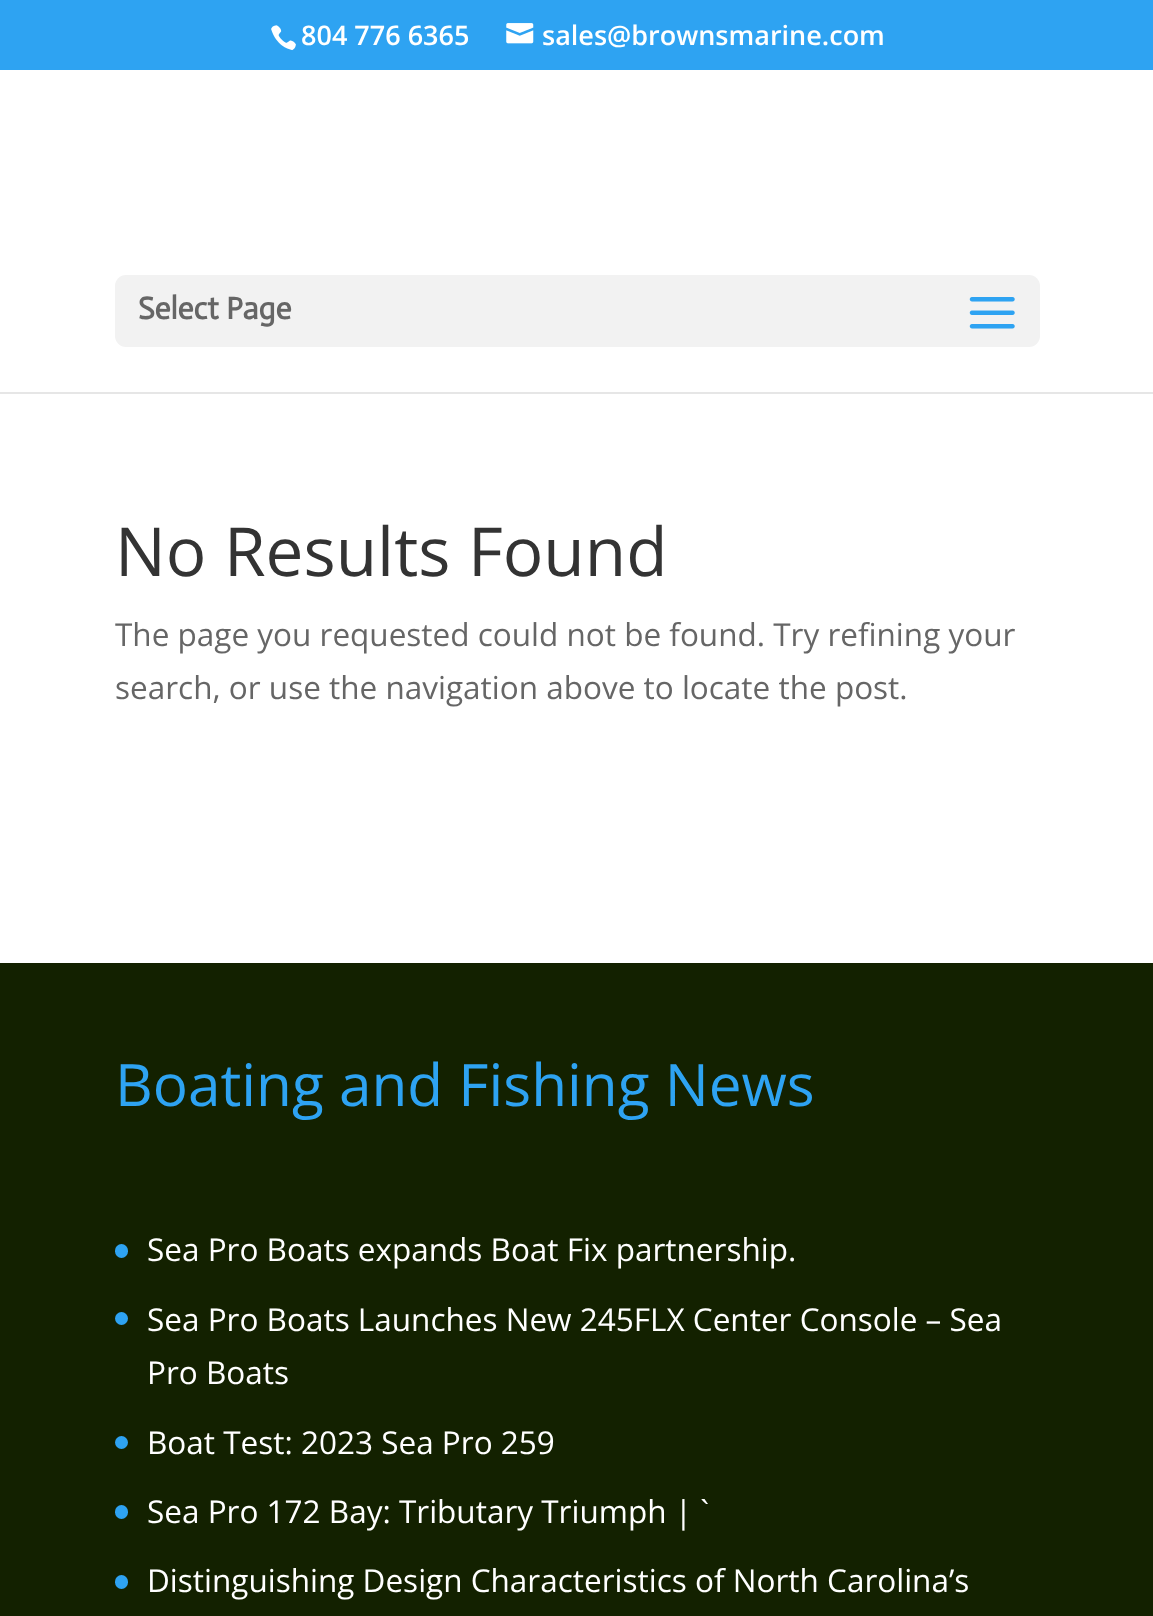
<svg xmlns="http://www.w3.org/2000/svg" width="1153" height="1616">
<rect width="100%" height="100%" fill="#fff"/>
<rect width="1153" height="70" fill="#2ea3f2"/>
<image x="271" y="25" width="25" height="26" href="media/1.png"/>
<text x="301" y="45" style="font-family:Open Sans;font-size:27px;font-weight:600;fill:#fff">804 776 6365</text>
<image x="506" y="23" width="28" height="21" href="media/2.png"/>
<text x="542" y="45" style="font-family:Open Sans;font-size:27px;font-weight:600;fill:#fff">sales@brownsmarine.com</text>
<rect y="392" width="1153" height="2" fill="#e6e6e6"/>
<rect x="115" y="275" width="925" height="72" rx="11" fill="#f2f2f2"/>
<text x="138" y="319" style="font-family:Actor;font-size:31.5px;font-weight:bold;fill:#666">Select Page</text>
<image x="969" y="297" width="46" height="32" href="media/3.png"/>
<text x="115" y="576" style="font-family:Open Sans;font-size:67.5px;fill:#333">No Results Found</text>
<text x="115" y="646" style="font-family:Open Sans;font-size:31.5px;fill:#666">The page you requested could not be found. Try refining your</text>
<text x="115" y="699" style="font-family:Open Sans;font-size:31.5px;fill:#666">search, or use the navigation above to locate the post.</text>
<rect y="963" width="1153" height="653" fill="#132100"/>
<text x="115" y="1106" style="font-family:Open Sans;font-size:58.5px;fill:#2ea3f2">Boating and Fishing News</text>
<rect x="115" y="1244" width="13" height="14" rx="6.5" fill="#2ea3f2"/>
<text x="147" y="1261" style="font-family:Open Sans;font-size:31.5px;fill:#fff">Sea Pro Boats expands Boat Fix partnership.</text>
<circle cx="121.5" cy="1318.5" r="6.5" fill="#2ea3f2"/>
<text x="147" y="1331" style="font-family:Open Sans;font-size:31.5px;fill:#fff">Sea Pro Boats Launches New 245FLX Center Console – Sea</text>
<text x="147" y="1384" style="font-family:Open Sans;font-size:31.5px;fill:#fff">Pro Boats</text>
<circle cx="121.5" cy="1442.5" r="6.5" fill="#2ea3f2"/>
<text x="147" y="1454" style="font-family:Open Sans;font-size:31.5px;fill:#fff">Boat Test: 2023 Sea Pro 259</text>
<rect x="115" y="1505" width="13" height="14" rx="6.5" fill="#2ea3f2"/>
<text x="147" y="1523" style="font-family:Open Sans;font-size:31.5px;fill:#fff">Sea Pro 172 Bay: Tributary Triumph | `</text>
<rect x="115" y="1575" width="13" height="14" rx="6.5" fill="#2ea3f2"/>
<text x="147" y="1592" style="font-family:Open Sans;font-size:31.5px;fill:#fff">Distinguishing Design Characteristics of North Carolina’s</text>
</svg>
